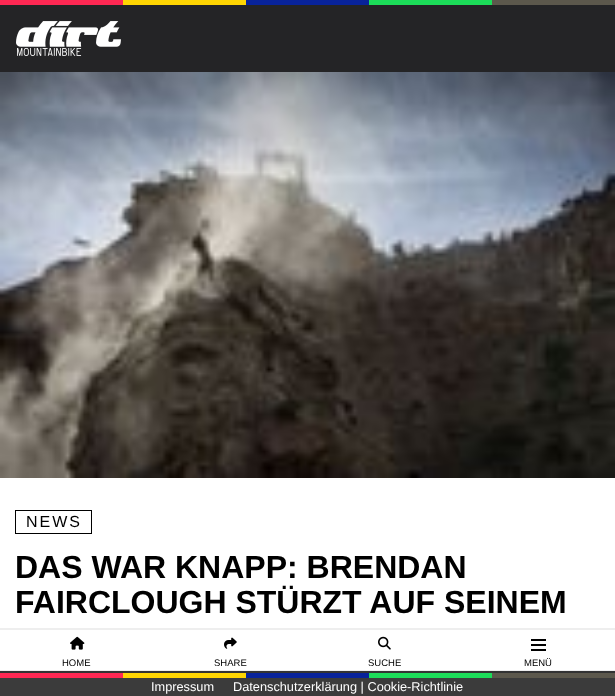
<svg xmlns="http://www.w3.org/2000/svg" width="615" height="696">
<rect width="100%" height="100%" fill="#fff"/>
<rect y="5" width="615" height="67" fill="#242426"/>
<rect width="123" height="5" fill="#ff2853"/>
<rect x="123" width="123" height="5" fill="#ffd502"/>
<rect x="246" width="123" height="5" fill="#08239b"/>
<rect x="369" width="123" height="5" fill="#1cdc59"/>
<rect x="492" width="123" height="5" fill="#5c584c"/>
<image x="16" y="21" width="105" height="35" href="media/1.png"/>
<image x="0" y="72" width="615" height="406" href="media/2.png"/>
<rect x="15.5" y="510.5" width="76" height="23" fill="none" stroke="#000"/>
<text x="26" y="527" style="font-family:Liberation Sans;font-size:16px;letter-spacing:2px;fill:#000">NEWS</text>
<text x="15" y="578" style="font-family:Liberation Sans;font-size:32px;font-weight:bold;fill:#000">DAS WAR KNAPP: BRENDAN</text>
<text x="15" y="613" style="font-family:Liberation Sans;font-size:32px;font-weight:bold;fill:#000">FAIRCLOUGH STÜRZT AUF SEINEM</text>
<rect y="628" width="615" height="2" fill="#eee"/>
<image x="70" y="636" width="15" height="14" href="media/3.png"/>
<text x="62" y="666" style="font-family:Liberation Sans;font-size:9.5px;fill:#000">HOME</text>
<image x="224" y="637" width="13" height="12" href="media/4.png"/>
<text x="214" y="666" style="font-family:Liberation Sans;font-size:9.5px;fill:#000">SHARE</text>
<image x="378" y="636" width="13" height="14" href="media/5.png"/>
<text x="368" y="666" style="font-family:Liberation Sans;font-size:9.5px;fill:#000">SUCHE</text>
<rect x="531" y="644" width="15" height="2" fill="#000"/>
<rect x="531" y="639" width="15" height="2" fill="#000"/>
<rect x="531" y="649" width="15" height="2" fill="#000"/>
<text x="524" y="666" style="font-family:Liberation Sans;font-size:9.5px;fill:#000">MENÜ</text>
<rect y="671" width="615" height="2" fill="#333"/>
<rect y="670" width="615" height="1" fill="#eee"/>
<rect y="673" width="123" height="5" fill="#ff2853"/>
<rect x="123" y="673" width="123" height="5" fill="#ffd502"/>
<rect x="246" y="673" width="123" height="5" fill="#08239b"/>
<rect x="369" y="673" width="123" height="5" fill="#1cdc59"/>
<rect x="492" y="673" width="123" height="5" fill="#5c584c"/>
<rect y="678" width="615" height="18" fill="#3b3b3b"/>
<text x="151" y="691" style="font-family:Liberation Sans;font-size:12.75px;fill:#fff">Impressum</text>
<text x="233" y="691" style="font-family:Liberation Sans;font-size:12.75px;fill:#fff">Datenschutzerklärung | Cookie-Richtlinie</text>
</svg>
